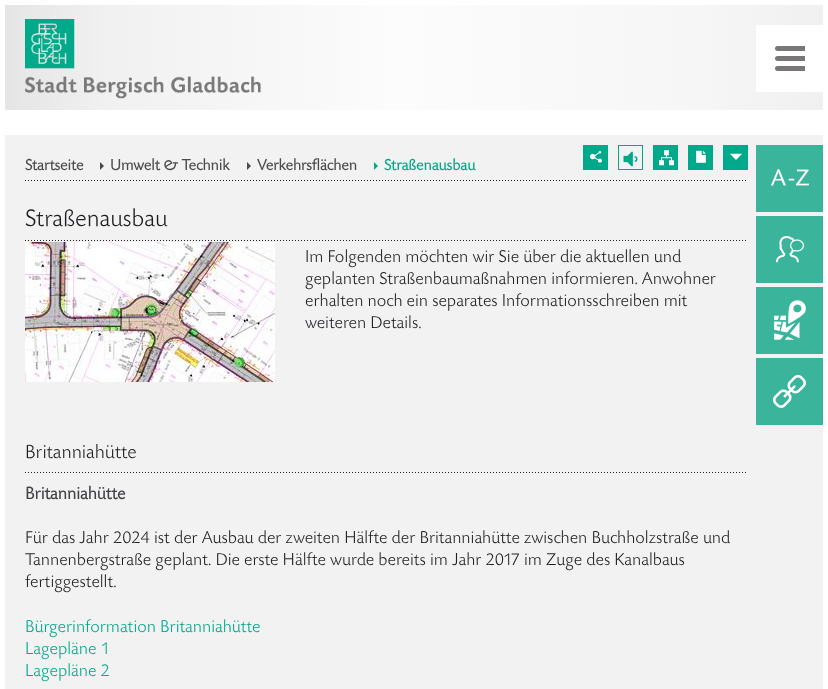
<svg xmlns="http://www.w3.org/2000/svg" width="828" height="689">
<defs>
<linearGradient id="g1" gradientUnits="userSpaceOnUse" x1="5" y1="58" x2="823" y2="57"><stop offset="0" stop-color="#e5e5e5"/><stop offset="0.13" stop-color="#f1f1f1"/><stop offset="0.48" stop-color="#fcfcfc"/><stop offset="0.85" stop-color="#f6f6f6"/><stop offset="1" stop-color="#f0f0f0"/></linearGradient>
</defs>
<rect width="100%" height="100%" fill="#fff"/>
<rect x="5" y="5" width="818" height="105" fill="url(#g1)"/>
<image x="25" y="19" width="236" height="80" href="media/1.png"/>
<rect x="756" y="25" width="67" height="67" fill="#fff"/>
<path d="M777.5 56h12.5v5h-12.5c-1.5 0-2.5-1-2.5-2.5c0-1.5 1-2.5 2.5-2.5z" fill="#787676"/>
<path d="M777.5 46h12.5v5h-12.5c-1.5 0-2.5-1-2.5-2.5c0-1.5 1-2.5 2.5-2.5z" fill="#787676"/>
<path d="M777.5 66h12.5v5h-12.5c-1.5 0-2.5-1-2.5-2.5c0-1.5 1-2.5 2.5-2.5z" fill="#787676"/>
<rect x="790" y="56" width="15" height="5" fill="#787676"/>
<rect x="790" y="46" width="15" height="5" fill="#787676"/>
<rect x="790" y="66" width="15" height="5" fill="#787676"/>
<rect x="5" y="135" width="818" height="554" fill="#f2f2f2"/>
<text x="25" y="170" style="font-family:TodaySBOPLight;font-size:16px;font-weight:bold;fill:#4b4b4d">Startseite</text>
<path d="M100 170v-8l4 4z" fill="#4b4b4d"/>
<text x="110" y="170" style="font-family:TodaySBOPLight;font-size:16px;font-weight:bold;fill:#4b4b4d">Umwelt &amp; Technik</text>
<path d="M247 170v-8l4 4z" fill="#4b4b4d"/>
<text x="257" y="170" style="font-family:TodaySBOPLight;font-size:16px;font-weight:bold;fill:#4b4b4d">Verkehrsflächen</text>
<path d="M374 170v-8l4 4z" fill="#00a989"/>
<text x="384" y="170" style="font-family:TodaySBOPLight;font-size:16px;font-weight:bold;fill:#00a989">Straßenausbau</text>
<rect x="583" y="145" width="25" height="25" fill="#00a989"/>
<image x="590" y="151" width="12" height="12" href="media/2.png"/>
<rect x="618.5" y="145.5" width="24" height="24" fill="none" stroke="#00a989"/>
<image x="623" y="151" width="15" height="16" href="media/3.png"/>
<rect x="653" y="145" width="25" height="25" fill="#00a989"/>
<image x="659" y="150" width="15" height="16" href="media/4.png"/>
<rect x="688" y="145" width="25" height="25" fill="#00a989"/>
<image x="696" y="150" width="10" height="13" href="media/5.png"/>
<rect x="723" y="145" width="25" height="25" fill="#00a989"/>
<image x="730" y="153" width="12" height="7" href="media/6.png"/>
<image x="25" y="180" width="721" height="1" href="media/7.png"/>
<text x="25" y="226" style="font-family:TodaySBOPLight;font-size:25px;fill:#1f1d21">Straßenausbau</text>
<image x="25" y="240" width="721" height="1" href="media/7.png"/>
<image x="25" y="242" width="250" height="140" href="media/8.png"/>
<text x="305" y="262" style="font-family:TodaySBOPLight;font-size:18px;fill:#1f1d21">Im Folgenden möchten wir Sie über die aktuellen und</text>
<text x="305" y="284" style="font-family:TodaySBOPLight;font-size:18px;fill:#1f1d21">geplanten Straßenbaumaßnahmen informieren. Anwohner</text>
<text x="305" y="306" style="font-family:TodaySBOPLight;font-size:18px;fill:#1f1d21">erhalten noch ein separates Informationsschreiben mit</text>
<text x="305" y="328" style="font-family:TodaySBOPLight;font-size:18px;fill:#1f1d21">weiteren Details.</text>
<text x="25" y="458" style="font-family:TodaySBOPLight;font-size:20px;fill:#1f1d21">Britanniahütte</text>
<image x="25" y="472" width="721" height="1" href="media/7.png"/>
<text x="25" y="499" style="font-family:TodaySBOPLight;font-size:18px;font-weight:bold;fill:#434145">Britanniahütte</text>
<text x="25" y="543" style="font-family:TodaySBOPLight;font-size:18px;fill:#1f1d21">Für das Jahr 2024 ist der Ausbau der zweiten Hälfte der Britanniahütte zwischen Buchholzstraße und</text>
<text x="25" y="565" style="font-family:TodaySBOPLight;font-size:18px;fill:#1f1d21">Tannenbergstraße geplant. Die erste Hälfte wurde bereits im Jahr 2017 im Zuge des Kanalbaus</text>
<text x="25" y="587" style="font-family:TodaySBOPLight;font-size:18px;fill:#1f1d21">fertiggestellt.</text>
<text x="25" y="632" style="font-family:TodaySBOPLight;font-size:18px;fill:#00a989">Bürgerinformation Britanniahütte</text>
<text x="25" y="654" style="font-family:TodaySBOPLight;font-size:18px;fill:#00a989">Lagepläne 1</text>
<text x="25" y="676" style="font-family:TodaySBOPLight;font-size:18px;fill:#00a989">Lagepläne 2</text>
<rect x="756" y="145" width="67" height="67" fill="#3bb49c"/>
<image x="771" y="169" width="39" height="17" href="media/9.png"/>
<rect x="756" y="216" width="67" height="67" fill="#3bb49c"/>
<image x="776" y="236" width="28" height="27" href="media/10.png"/>
<rect x="756" y="287" width="67" height="67" fill="#3bb49c"/>
<image x="774" y="300" width="32" height="40" href="media/11.png"/>
<rect x="756" y="358" width="67" height="67" fill="#3bb49c"/>
<image x="773" y="375" width="33" height="33" href="media/12.png"/>
</svg>
